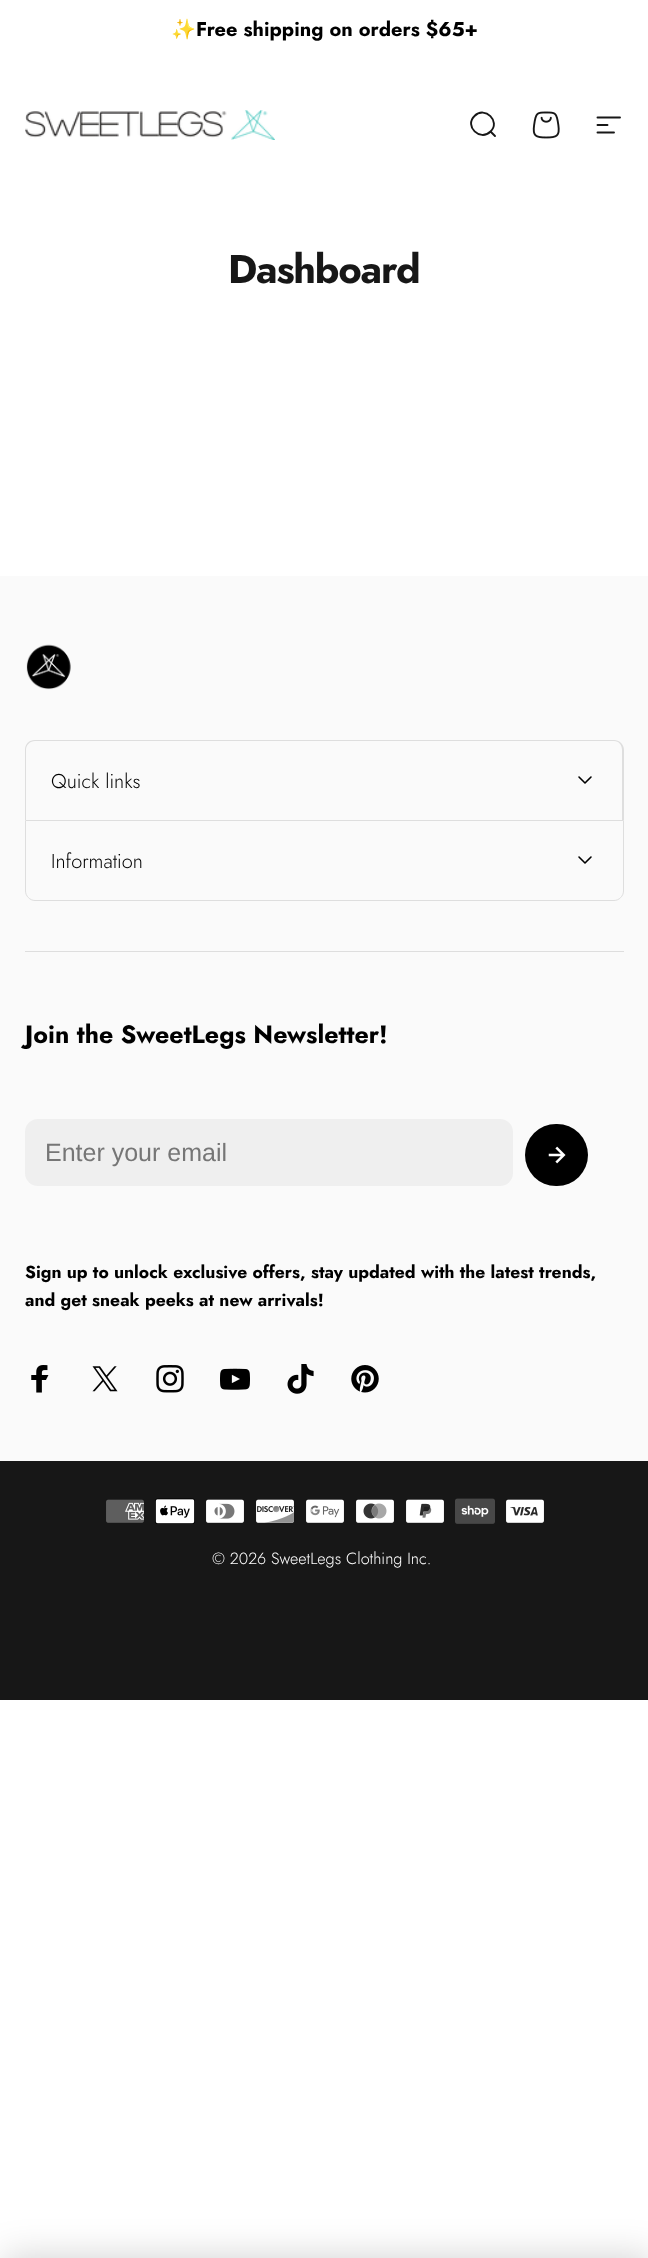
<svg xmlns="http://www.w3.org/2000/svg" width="648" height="2258">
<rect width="100%" height="100%" fill="#fff"/>
<text x="171" y="36" style="font-family:Noto Color Emoji;font-size:20px;font-weight:bold;fill:#000">✨</text>
<text x="196" y="36" style="font-family:Jost;font-size:20px;font-weight:bold;fill:#000">Free shipping on orders $65+</text>
<image x="25" y="110" width="250" height="30" href="media/1.png"/>
<path d="M495 136l-4.5-4.5m0 0c10.5-10-5.5-26-16-15.5c-10.5 10 5.5 26 16 15.5z" fill="none" stroke="#171717" stroke-width="1.9" stroke-linecap="round"/>
<image x="532" y="111" width="28" height="28" href="media/2.png"/>
<path d="M597.5 117.5h22.5m-22.5 7.5h10m-10 7.5h16.5" fill="none" stroke="#171717" stroke-width="1.9" stroke-linecap="round"/>
<text x="228" y="283" style="font-family:Jost;font-size:40px;font-weight:bold;letter-spacing:-1.25px;fill:#171717">Dashboard</text>
<rect y="576" width="648" height="885" fill="#fafafa"/>
<image x="26" y="644" width="45" height="46" href="media/3.png"/>
<path d="M35 740h579c5 0 10 4 10 10v70h-599v-70c0-6 4-10 10-10zm0 1h579c5 0 8 4 8 9v70h-596v-70c0-5 4-9 9-9z" fill="#dedede" fill-rule="evenodd"/>
<text x="51" y="788" style="font-family:Jost;font-size:20px;font-weight:300;fill:#000">Quick links</text>
<path d="M579 777l6 6l6-6" fill="none" stroke="#000" stroke-width="1.6" stroke-linecap="round" stroke-linejoin="round"/>
<path d="M25.5 820.5h598v70.5c0 5-4.5 9.5-9.5 9.5h-579c-5 0-9.5-4.5-9.5-9.5z" fill="none" stroke="#dedede"/>
<text x="51" y="868" style="font-family:Jost;font-size:20px;font-weight:300;fill:#000">Information</text>
<path d="M579 857l6 6l6-6" fill="none" stroke="#000" stroke-width="1.6" stroke-linecap="round" stroke-linejoin="round"/>
<rect x="25" y="951" width="599" height="1" fill="#dedede"/>
<text x="25" y="1043" style="font-family:Jost;font-size:25px;font-weight:bold;fill:#000">Join the SweetLegs Newsletter!</text>
<rect x="25" y="1119" width="488" height="67" rx="13" fill="#efefef"/>
<text x="45" y="1161" style="font-family:Liberation Sans;font-size:25px;fill:#767676">Enter your email</text>
<rect x="525" y="1124" width="63" height="62" rx="31" fill="#000"/>
<image x="548" y="1146" width="18" height="18" href="media/4.png"/>
<text x="25" y="1278" style="font-family:Jost;font-size:17.5px;font-weight:bold;fill:#000">Sign up to unlock exclusive offers, stay updated with the latest trends,</text>
<text x="25" y="1306" style="font-family:Jost;font-size:17.5px;font-weight:bold;fill:#000">and get sneak peeks at new arrivals!</text>
<image x="31" y="1365" width="18" height="28" href="media/5.png"/>
<image x="92" y="1366" width="26" height="26" href="media/6.png"/>
<image x="156" y="1365" width="28" height="28" href="media/7.png"/>
<image x="220" y="1368" width="30" height="22" href="media/8.png"/>
<image x="287" y="1364" width="27" height="30" href="media/9.png"/>
<image x="351" y="1365" width="28" height="28" href="media/10.png"/>
<rect y="1461" width="648" height="239" fill="#171717"/>
<image x="106" y="1499" width="38" height="24" href="media/11.png"/>
<image x="155" y="1498" width="40" height="26" href="media/12.png"/>
<image x="206" y="1499" width="38" height="24" href="media/13.png"/>
<image x="256" y="1499" width="38" height="24" href="media/14.png"/>
<image x="306" y="1499" width="38" height="24" href="media/15.png"/>
<image x="356" y="1499" width="38" height="24" href="media/16.png"/>
<image x="406" y="1499" width="38" height="24" href="media/17.png"/>
<image x="455" y="1498" width="40" height="26" href="media/18.png"/>
<image x="506" y="1499" width="38" height="24" href="media/19.png"/>
<text x="212" y="1564" style="font-family:Jost;font-size:16.25px;font-weight:300;fill:#fff">© 2026 SweetLegs Clothing Inc.</text>
<rect x="4" y="2256" width="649" height="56" fill="#0000002b" filter="blur(18px)"/>
</svg>
